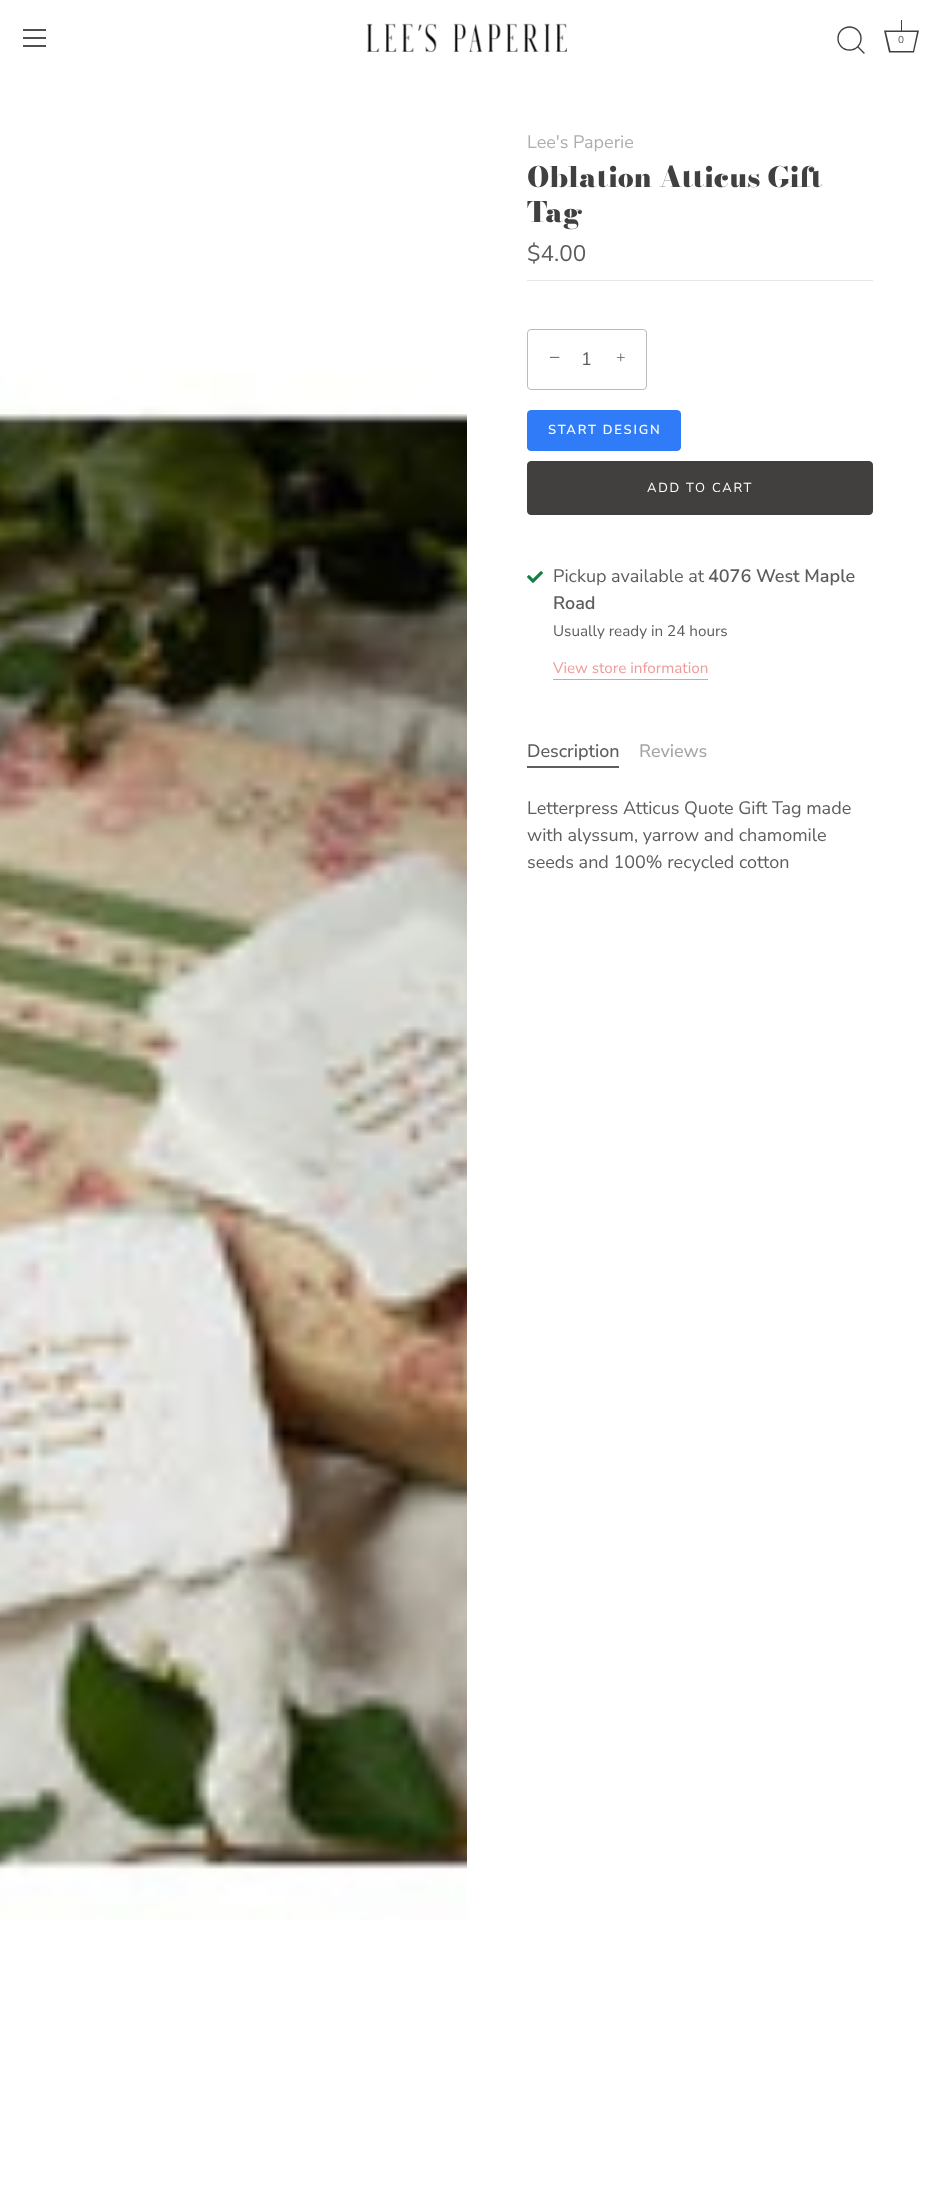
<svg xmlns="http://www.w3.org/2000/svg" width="933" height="2207">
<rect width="100%" height="100%" fill="#fff"/>
<rect x="23" y="29" width="23" height="2" fill="#505050"/>
<rect x="23" y="37" width="23" height="2" fill="#505050"/>
<rect x="23" y="45" width="23" height="2" fill="#505050"/>
<image x="366" y="23" width="201" height="29" href="media/1.png"/>
<circle cx="849.5" cy="38.5" r="11.5" fill="none" stroke="#423f3f" stroke-width="1.4"/>
<path d="M864 53l-6-6" fill="none" stroke="#423f3f" stroke-width="1.4" stroke-linecap="round" stroke-linejoin="round"/>
<path d="M917 32l-4 19h-22.5l-4.5-19h31m2-1.5h-35l5 22h25z" fill="#423f3f"/>
<rect x="901" y="20" width="1" height="11" fill="#423f3f"/>
<text x="898" y="43" style="font-family:Nunito Sans;font-size:10px;fill:#505050">0</text>
<image x="0" y="372" width="467" height="1548" href="media/2.png"/>
<text x="527" y="148" style="font-family:Nunito Sans;font-size:18px;fill:#afaeae">Lee's Paperie</text>
<text x="527" y="187" style="font-family:Bodoni Moda;font-size:28px;font-weight:900;fill:#423f3f">Oblation Atticus Gift</text>
<text x="527" y="222" style="font-family:Bodoni Moda;font-size:28px;font-weight:900;fill:#423f3f">Tag</text>
<text x="527" y="261" style="font-family:Nunito Sans;font-size:22.5px;fill:#5e5c5c">$4.00</text>
<rect x="527" y="280" width="346" height="1" fill="#e7e7e7"/>
<rect x="527.5" y="329.5" width="119" height="60" rx="3.5" fill="none" stroke="#bbb"/>
<text x="549" y="364" style="font-family:Liberation Serif;font-size:20px;fill:#5e5c5c">−</text>
<text x="581" y="365" style="font-family:Nunito Sans;font-size:18px;letter-spacing:1px;fill:#5e5c5c">1</text>
<text x="616" y="363" style="font-family:Liberation Serif;font-size:17px;fill:#5e5c5c">+</text>
<rect x="527.5" y="410.5" width="153" height="40" rx="3.5" fill="#2f7bf8" stroke="#2f7bf8"/>
<text x="548" y="434" style="font-family:Nunito Sans;font-size:13px;font-weight:600;letter-spacing:1.75px;fill:#f9fafb">START DESIGN</text>
<rect x="527.5" y="461.5" width="345" height="53" rx="3.5" fill="#423f3f" stroke="#423f3f"/>
<text x="647" y="492" style="font-family:Nunito Sans;font-size:13px;letter-spacing:1.75px;fill:#fff">ADD TO CART</text>
<image x="527" y="571" width="16" height="12" href="media/3.png"/>
<text x="553" y="582" style="font-family:Nunito Sans;font-size:18px;fill:#5e5c5c">Pickup available at</text>
<text x="708" y="582" style="font-family:Nunito Sans;font-size:18px;font-weight:600;fill:#5e5c5c">4076 West Maple</text>
<text x="553" y="609" style="font-family:Nunito Sans;font-size:18px;font-weight:600;fill:#5e5c5c">Road</text>
<text x="553" y="636" style="font-family:Nunito Sans;font-size:15.25px;fill:#5e5c5c">Usually ready in 24 hours</text>
<text x="553" y="673" style="font-family:Nunito Sans;font-size:15.25px;fill:#ef9a9a">View store information</text>
<rect x="553" y="679" width="155" height="1" fill="#ef9a9a"/>
<text x="527" y="757" style="font-family:Nunito Sans;font-size:18px;font-weight:500;fill:#5e5c5c">Description</text>
<rect x="527" y="766" width="92" height="2" fill="#5e5c5c"/>
<text x="639" y="757" style="font-family:Nunito Sans;font-size:18px;font-weight:500;fill:#a6a5a5">Reviews</text>
<text x="527" y="814" style="font-family:Nunito Sans;font-size:18px;fill:#5e5c5c">Letterpress Atticus Quote Gift Tag made</text>
<text x="527" y="841" style="font-family:Nunito Sans;font-size:18px;fill:#5e5c5c">with alyssum, yarrow and chamomile</text>
<text x="527" y="868" style="font-family:Nunito Sans;font-size:18px;fill:#5e5c5c">seeds and 100% recycled cotton</text>
</svg>
